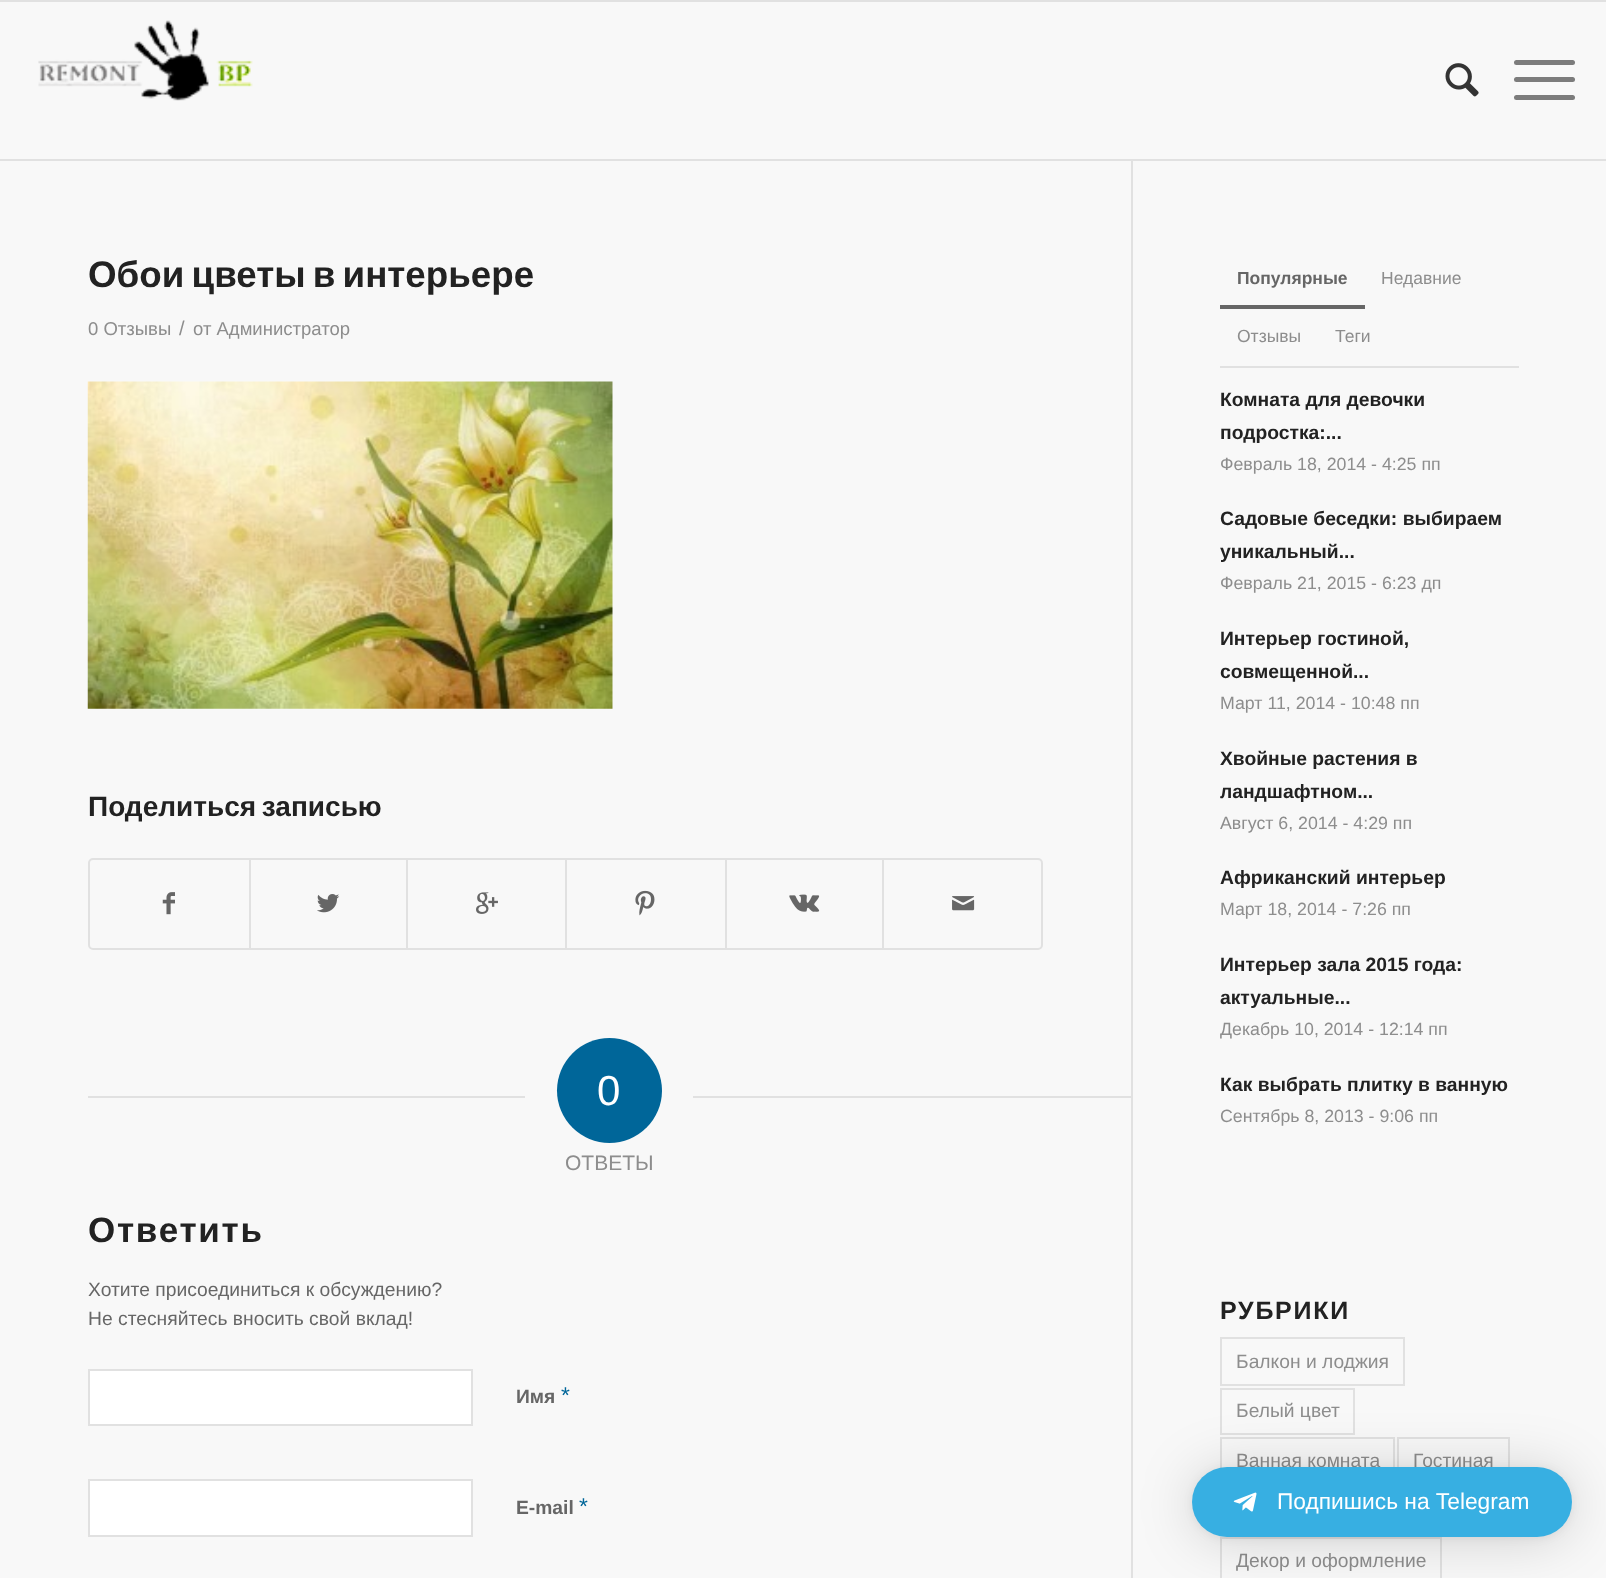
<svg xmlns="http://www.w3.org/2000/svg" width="1606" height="1578">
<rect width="100%" height="100%" fill="#f8f8f8"/>
<rect width="1606" height="2" fill="#e1e1e1"/>
<rect y="159" width="1606" height="2" fill="#e1e1e1"/>
<image x="38" y="20" width="215" height="81" href="media/1.png"/>
<image x="1445" y="63" width="34" height="34" href="media/2.png"/>
<rect x="1514" y="77" width="61" height="5" rx="2.5" fill="#7c7c7c"/>
<rect x="1514" y="60" width="61" height="5" rx="2.5" fill="#7c7c7c"/>
<rect x="1514" y="95" width="61" height="5" rx="2.5" fill="#7c7c7c"/>
<rect x="1131" y="161" width="2" height="1417" fill="#e1e1e1"/>
<text x="88" y="287" word-spacing="-3" style="font-family:Liberation Sans;font-size:36.75px;font-weight:bold;fill:#222">Обои цветы в интерьере</text>
<text x="88" y="335" style="font-family:Liberation Sans;font-size:18.5px;fill:#8d8d8d">0 Отзывы</text>
<text x="179" y="335" style="font-family:Liberation Sans;font-size:20px;fill:#8d8d8d">/</text>
<text x="193" y="335" style="font-family:Liberation Sans;font-size:18.5px;fill:#8d8d8d">от Администратор</text>
<image x="87" y="381" width="526" height="328" href="media/3.png"/>
<text x="88" y="816" word-spacing="-2" style="font-family:Liberation Sans;font-size:28px;font-weight:bold;fill:#222">Поделиться записью</text>
<rect x="89" y="859" width="953" height="90" rx="4" fill="none" stroke="#e1e1e1" stroke-width="2"/>
<image x="162" y="892" width="13" height="23" href="media/4.png"/>
<rect x="249" y="859" width="2" height="90" fill="#e1e1e1"/>
<image x="317" y="894" width="23" height="19" href="media/5.png"/>
<rect x="406" y="859" width="2" height="90" fill="#e1e1e1"/>
<image x="476" y="892" width="22" height="22" href="media/6.png"/>
<rect x="565" y="859" width="2" height="90" fill="#e1e1e1"/>
<image x="635" y="890" width="20" height="26" href="media/7.png"/>
<rect x="725" y="859" width="2" height="90" fill="#e1e1e1"/>
<image x="789" y="894" width="31" height="18" href="media/8.png"/>
<rect x="882" y="859" width="2" height="90" fill="#e1e1e1"/>
<image x="952" y="896" width="23" height="15" href="media/9.png"/>
<rect x="88" y="1096" width="437" height="2" fill="#e1e1e1"/>
<circle cx="609.5" cy="1090.5" r="52.5" fill="#069"/>
<text x="597" y="1105" style="font-family:Liberation Sans;font-size:42px;fill:#fff">0</text>
<rect x="693" y="1096" width="438" height="2" fill="#e1e1e1"/>
<text x="565" y="1170" style="font-family:Liberation Sans;font-size:21px;fill:#8d8d8d">ОТВЕТЫ</text>
<text x="88" y="1242" style="font-family:Liberation Sans;font-size:35px;font-weight:bold;letter-spacing:1.75px;fill:#222">Ответить</text>
<text x="88" y="1296" style="font-family:Liberation Sans;font-size:19.3px;fill:#666">Хотите присоединиться к обсуждению?</text>
<text x="88" y="1325" style="font-family:Liberation Sans;font-size:19.3px;fill:#666">Не стесняйтесь вносить свой вклад!</text>
<rect x="89" y="1370" width="383" height="55" fill="#fff" stroke="#e1e1e1" stroke-width="2"/>
<text x="516" y="1403" style="font-family:Liberation Sans;font-size:19.25px;font-weight:bold;fill:#666">Имя</text>
<text x="561" y="1403" style="font-family:Liberation Sans;font-size:22.75px;fill:#069">*</text>
<rect x="89" y="1480" width="383" height="56" fill="#fff" stroke="#e1e1e1" stroke-width="2"/>
<text x="516" y="1514" style="font-family:Liberation Sans;font-size:19.25px;font-weight:bold;fill:#666">E-mail</text>
<text x="579" y="1514" style="font-family:Liberation Sans;font-size:22.75px;fill:#069">*</text>
<rect x="1220" y="366" width="299" height="2" fill="#e1e1e1"/>
<rect x="1220" y="305" width="145" height="4" fill="#666"/>
<text x="1237" y="284" style="font-family:Liberation Sans;font-size:17.5px;font-weight:bold;fill:#666">Популярные</text>
<text x="1381" y="284" style="font-family:Liberation Sans;font-size:17.5px;fill:#8d8d8d">Недавние</text>
<text x="1237" y="342" style="font-family:Liberation Sans;font-size:17.5px;fill:#8d8d8d">Отзывы</text>
<text x="1335" y="342" style="font-family:Liberation Sans;font-size:17.5px;fill:#8d8d8d">Теги</text>
<text x="1220" y="406" style="font-family:Liberation Sans;font-size:19.3px;font-weight:bold;fill:#222">Комната для девочки</text>
<text x="1220" y="439" style="font-family:Liberation Sans;font-size:19.3px;font-weight:bold;fill:#222">подростка:...</text>
<text x="1220" y="470" style="font-family:Liberation Sans;font-size:17.75px;fill:#8d8d8d">Февраль 18, 2014 - 4:25 пп</text>
<text x="1220" y="525" style="font-family:Liberation Sans;font-size:19.3px;font-weight:bold;fill:#222">Садовые беседки: выбираем</text>
<text x="1220" y="558" style="font-family:Liberation Sans;font-size:19.3px;font-weight:bold;fill:#222">уникальный...</text>
<text x="1220" y="589" style="font-family:Liberation Sans;font-size:17.75px;fill:#8d8d8d">Февраль 21, 2015 - 6:23 дп</text>
<text x="1220" y="645" style="font-family:Liberation Sans;font-size:19.3px;font-weight:bold;fill:#222">Интерьер гостиной,</text>
<text x="1220" y="678" style="font-family:Liberation Sans;font-size:19.3px;font-weight:bold;fill:#222">совмещенной...</text>
<text x="1220" y="709" style="font-family:Liberation Sans;font-size:17.75px;fill:#8d8d8d">Март 11, 2014 - 10:48 пп</text>
<text x="1220" y="765" style="font-family:Liberation Sans;font-size:19.3px;font-weight:bold;fill:#222">Хвойные растения в</text>
<text x="1220" y="798" style="font-family:Liberation Sans;font-size:19.3px;font-weight:bold;fill:#222">ландшафтном...</text>
<text x="1220" y="829" style="font-family:Liberation Sans;font-size:17.75px;fill:#8d8d8d">Август 6, 2014 - 4:29 пп</text>
<text x="1220" y="884" style="font-family:Liberation Sans;font-size:19.3px;font-weight:bold;fill:#222">Африканский интерьер</text>
<text x="1220" y="915" style="font-family:Liberation Sans;font-size:17.75px;fill:#8d8d8d">Март 18, 2014 - 7:26 пп</text>
<text x="1220" y="971" style="font-family:Liberation Sans;font-size:19.3px;font-weight:bold;fill:#222">Интерьер зала 2015 года:</text>
<text x="1220" y="1004" style="font-family:Liberation Sans;font-size:19.3px;font-weight:bold;fill:#222">актуальные...</text>
<text x="1220" y="1035" style="font-family:Liberation Sans;font-size:17.75px;fill:#8d8d8d">Декабрь 10, 2014 - 12:14 пп</text>
<text x="1220" y="1091" style="font-family:Liberation Sans;font-size:19.3px;font-weight:bold;fill:#222">Как выбрать плитку в ванную</text>
<text x="1220" y="1122" style="font-family:Liberation Sans;font-size:17.75px;fill:#8d8d8d">Сентябрь 8, 2013 - 9:06 пп</text>
<text x="1220" y="1319" style="font-family:Liberation Sans;font-size:25px;font-weight:bold;letter-spacing:1.75px;fill:#222">РУБРИКИ</text>
<rect x="1221" y="1338" width="183" height="47" fill="none" stroke="#e1e1e1" stroke-width="2"/>
<text x="1236" y="1368" style="font-family:Liberation Sans;font-size:19.25px;fill:#8d8d8d">Балкон и лоджия</text>
<rect x="1221" y="1389" width="133" height="45" fill="none" stroke="#e1e1e1" stroke-width="2"/>
<text x="1236" y="1417" style="font-family:Liberation Sans;font-size:19.25px;fill:#8d8d8d">Белый цвет</text>
<rect x="1221" y="1438" width="173" height="47" fill="none" stroke="#e1e1e1" stroke-width="2"/>
<text x="1236" y="1467" style="font-family:Liberation Sans;font-size:19.25px;fill:#8d8d8d">Ванная комната</text>
<rect x="1398" y="1438" width="111" height="47" fill="none" stroke="#e1e1e1" stroke-width="2"/>
<text x="1413" y="1467" style="font-family:Liberation Sans;font-size:19.25px;fill:#8d8d8d">Гостиная</text>
<rect x="1221" y="1538" width="220" height="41" fill="none" stroke="#e1e1e1" stroke-width="2"/>
<text x="1236" y="1567" style="font-family:Liberation Sans;font-size:19.25px;fill:#8d8d8d">Декор и оформление</text>
<rect x="1192" y="1470" width="380" height="70" rx="35" fill="#00000029" filter="blur(28px)"/>
<rect x="1192" y="1468" width="380" height="70" rx="35" fill="#0000000f" filter="blur(5px)"/>
<rect x="1192" y="1467" width="380" height="70" rx="35" fill="#37afe2"/>
<image x="1233" y="1492" width="24" height="20" href="media/10.png"/>
<text x="1277" y="1509" style="font-family:Liberation Sans;font-size:22.75px;fill:#fff">Подпишись на Telegram</text>
</svg>
